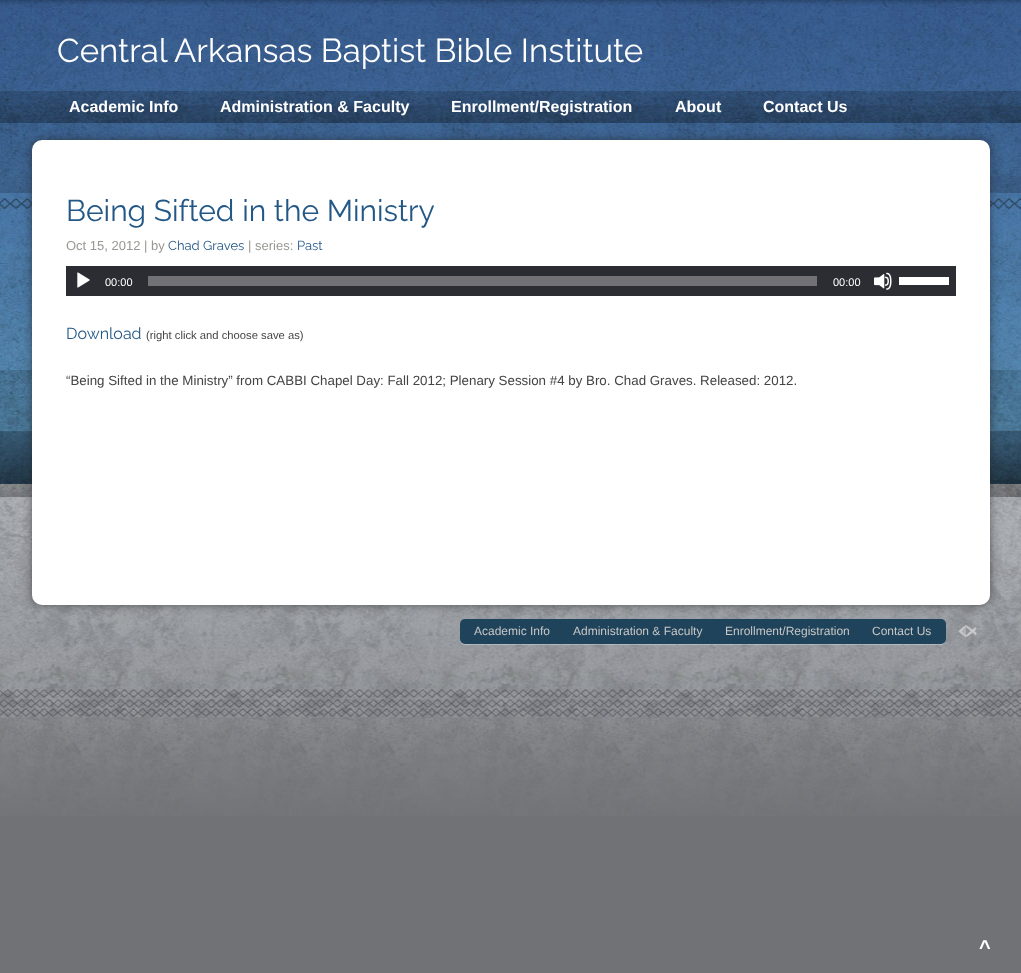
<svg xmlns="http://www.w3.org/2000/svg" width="1021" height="973">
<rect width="100%" height="100%" fill="#717276"/>
<image x="0" y="0" width="1021" height="816" href="media/1.png"/>
<text x="57" y="62" style="font-family:Raleway;font-size:33px;fill:#fff">Central Arkansas Baptist Bible Institute</text>
<text x="69" y="112" style="font-family:Liberation Sans;font-size:16px;font-weight:bold;fill:#fff">Academic Info</text>
<text x="220" y="112" style="font-family:Liberation Sans;font-size:16px;font-weight:bold;fill:#fff">Administration &amp; Faculty</text>
<text x="451" y="112" style="font-family:Liberation Sans;font-size:16px;font-weight:bold;fill:#fff">Enrollment/Registration</text>
<text x="675" y="112" style="font-family:Liberation Sans;font-size:16px;font-weight:bold;fill:#fff">About</text>
<text x="763" y="112" style="font-family:Liberation Sans;font-size:16px;font-weight:bold;fill:#fff">Contact Us</text>
<rect x="460" y="620" width="486" height="25" rx="5" fill="#ffffff4d" filter="blur(0.5px)"/>
<rect x="460" y="619" width="486" height="25" rx="5" fill="#1e435a"/>
<rect x="32" y="140" width="958" height="465" rx="10" fill="#1e1e1e8c" filter="blur(5px)"/>
<rect x="32" y="140" width="958" height="465" rx="10" fill="#fff"/>
<text x="66" y="221" style="font-family:Raleway;font-size:30px;fill:#235886">Being Sifted in the Ministry</text>
<text x="66" y="250" style="font-family:Liberation Sans;font-size:13px;fill:#999792">Oct 15, 2012 | by</text>
<text x="168" y="250" style="font-family:Raleway;font-size:13px;fill:#235886">Chad Graves</text>
<text x="248" y="250" style="font-family:Liberation Sans;font-size:13px;fill:#999792">| series:</text>
<text x="297" y="250" style="font-family:Raleway;font-size:13px;fill:#235886">Past</text>
<rect x="66" y="266" width="890" height="30" fill="#2c2d33"/>
<image x="77" y="272" width="13" height="16" href="media/2.png"/>
<text x="105" y="286" style="font-family:Liberation Sans;font-size:11px;fill:#fff">00:00</text>
<rect x="148" y="276" width="669" height="10" fill="#727276"/>
<text x="833" y="286" style="font-family:Liberation Sans;font-size:11px;fill:#fff">00:00</text>
<image x="874" y="272" width="18" height="18" href="media/3.png"/>
<rect x="899" y="277" width="50" height="8" fill="#fff"/>
<text x="66" y="339" style="font-family:Raleway;font-size:16px;fill:#235886">Download</text>
<text x="146" y="339" style="font-family:Liberation Sans;font-size:11.25px;fill:#444">(right click and choose save as)</text>
<text x="66" y="385" style="font-family:Liberation Sans;font-size:13.33px;fill:#444">“Being Sifted in the Ministry” from CABBI Chapel Day: Fall 2012; Plenary Session #4 by Bro. Chad Graves. Released: 2012.</text>
<text x="474" y="635" style="font-family:Liberation Sans;font-size:12px;fill:#c8c7c7">Academic Info</text>
<text x="573" y="635" style="font-family:Liberation Sans;font-size:12px;fill:#c8c7c7">Administration &amp; Faculty</text>
<text x="725" y="635" style="font-family:Liberation Sans;font-size:12px;fill:#c8c7c7">Enrollment/Registration</text>
<text x="872" y="635" style="font-family:Liberation Sans;font-size:12px;fill:#c8c7c7">Contact Us</text>
<image x="958" y="625" width="19" height="13" href="media/4.png"/>
<text x="979" y="954" style="font-family:Liberation Sans;font-size:20px;font-weight:bold;fill:#fff">^</text>
</svg>
